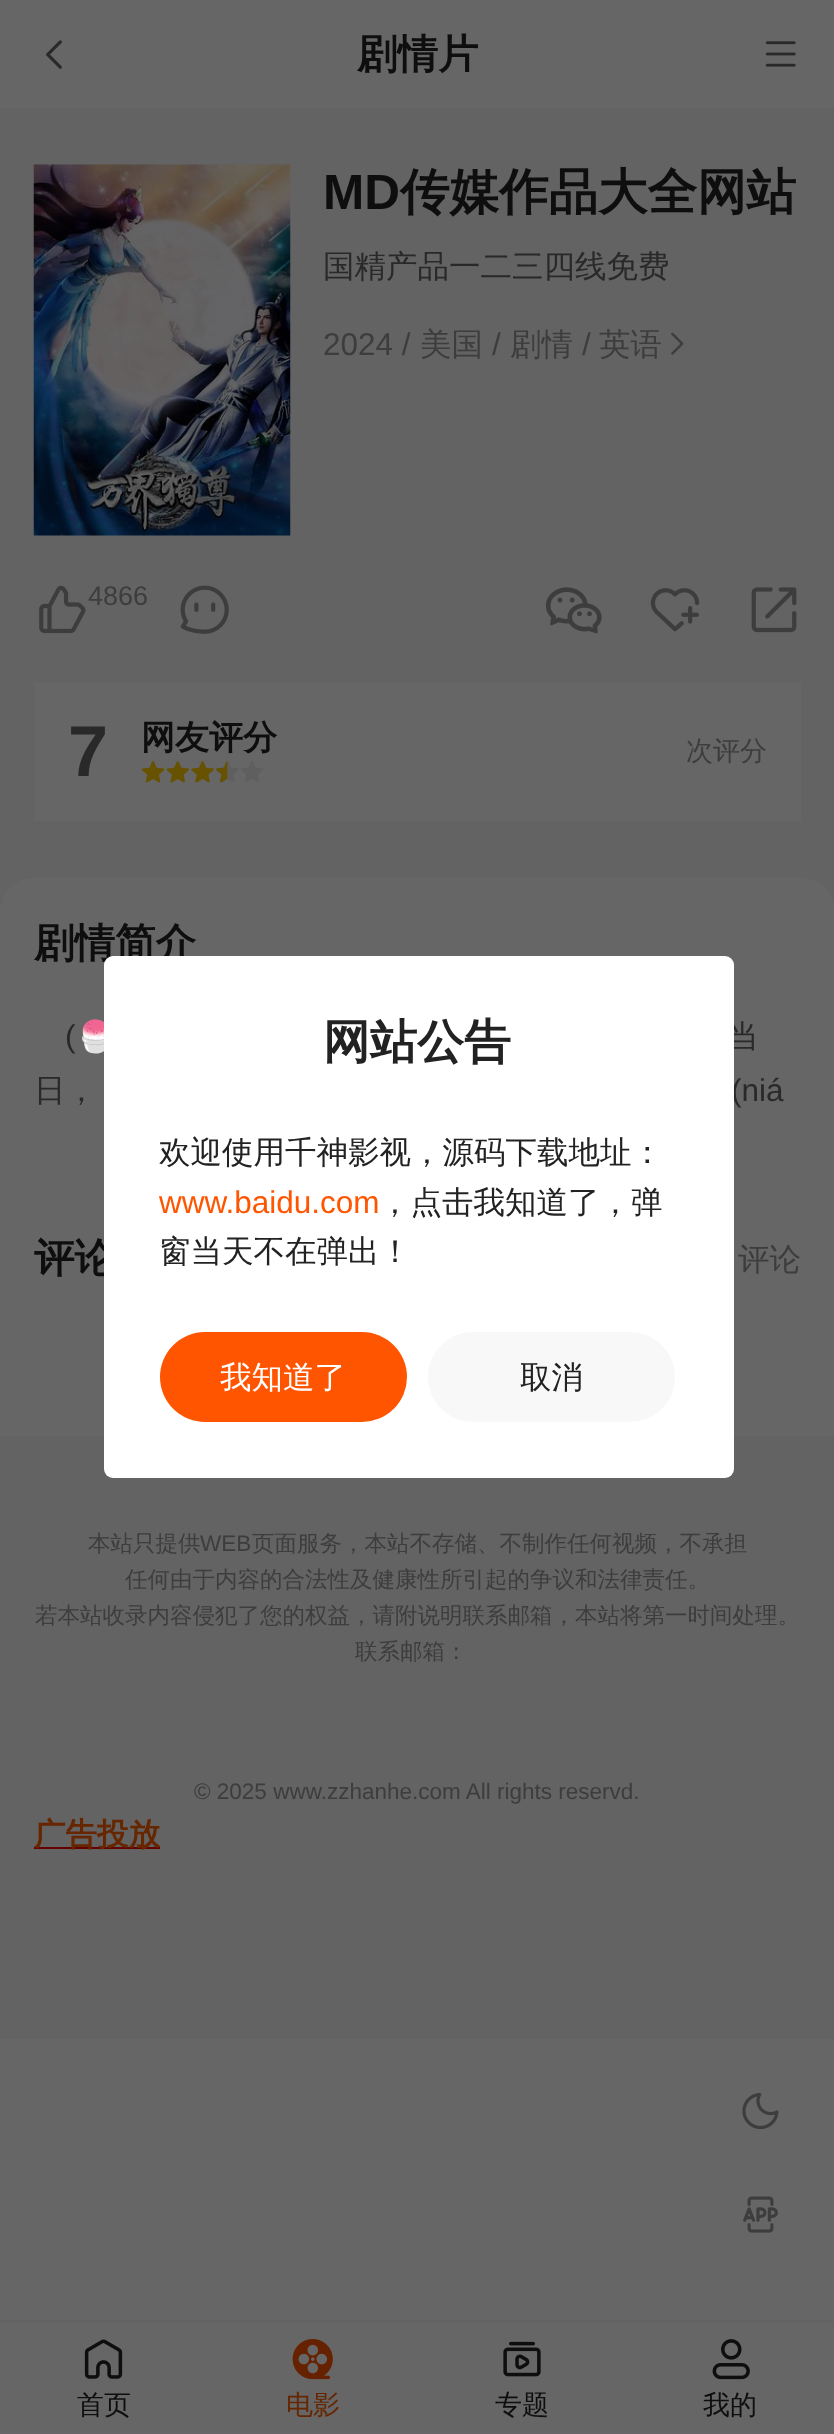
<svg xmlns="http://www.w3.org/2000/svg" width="834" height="2434">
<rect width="100%" height="100%" fill="#666"/>
<image x="46" y="40" width="16" height="29" href="media/1.png"/>
<text x="357" y="68" style="font-family:WenQuanYi Zen Hei;font-size:40.5px;font-weight:bold;fill:#0e0e0e">剧情片</text>
<image x="765" y="41" width="31" height="26" href="media/2.png"/>
<rect y="108" width="834" height="803" fill="#636363"/>
<image x="33" y="164" width="258" height="372" href="media/3.png"/>
<text x="323" y="209" style="font-family:Liberation Sans;font-size:49.5px;font-weight:bold;fill:#0e0e0e">MD</text>
<text x="400" y="209" style="font-family:WenQuanYi Zen Hei;font-size:49.5px;font-weight:bold;fill:#0e0e0e">传媒作品大全网站</text>
<text x="323" y="277" style="font-family:WenQuanYi Zen Hei;font-size:31.5px;font-weight:500;fill:#292929">国精产品一二三四线免费</text>
<text x="323" y="355" style="font-family:Liberation Sans;font-size:31.5px;fill:#3d3d3d">2024 /</text>
<text x="420" y="355" style="font-family:WenQuanYi Zen Hei;font-size:31.5px;font-weight:500;fill:#3d3d3d">美国</text>
<text x="492" y="355" style="font-family:Liberation Sans;font-size:31.5px;fill:#3d3d3d">/</text>
<text x="510" y="355" style="font-family:WenQuanYi Zen Hei;font-size:31.5px;font-weight:500;fill:#3d3d3d">剧情</text>
<text x="582" y="355" style="font-family:Liberation Sans;font-size:31.5px;fill:#3d3d3d">/</text>
<text x="599" y="355" style="font-family:WenQuanYi Zen Hei;font-size:31.5px;font-weight:500;fill:#3d3d3d">英语</text>
<image x="671" y="332" width="13" height="23" href="media/4.png"/>
<image x="39" y="585" width="47" height="49" href="media/5.png"/>
<text x="88" y="605" style="font-family:Liberation Sans;font-size:27px;fill:#3d3d3d">4866</text>
<image x="180" y="585" width="49" height="49" href="media/6.png"/>
<image x="545" y="587" width="57" height="47" href="media/7.png"/>
<image x="650" y="588" width="50" height="44" href="media/8.png"/>
<image x="751" y="587" width="46" height="46" href="media/9.png"/>
<rect x="34" y="682" width="767" height="139" fill="#666"/>
<text x="68" y="776" style="font-family:Liberation Sans;font-size:72px;font-weight:bold;fill:#292929">7</text>
<text x="141" y="749" style="font-family:WenQuanYi Zen Hei;font-size:34px;font-weight:bold;fill:#0e0e0e">网友评分</text>
<image x="142" y="761" width="22" height="22" href="media/10.png"/>
<image x="167" y="761" width="22" height="22" href="media/11.png"/>
<image x="191" y="761" width="23" height="22" href="media/12.png"/>
<image x="216" y="761" width="23" height="22" href="media/13.png"/>
<image x="241" y="761" width="22" height="22" href="media/14.png"/>
<text x="686" y="760" style="font-family:WenQuanYi Zen Hei;font-size:27px;font-weight:500;fill:#3d3d3d">次评分</text>
<path d="M33 878h769c18 0 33 15 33 33h-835c0-18 15-33 33-33z" fill="#666"/>
<text x="34" y="957" style="font-family:WenQuanYi Zen Hei;font-size:40.5px;font-weight:bold;fill:#0e0e0e">剧情简介</text>
<text x="65" y="1047" style="font-family:Liberation Sans;font-size:31.5px;fill:#292929">(</text>
<text x="76" y="1047" style="font-family:Noto Color Emoji;font-size:31.5px;fill:#292929">🍧</text>
<text x="727" y="1047" style="font-family:WenQuanYi Zen Hei;font-size:31.5px;font-weight:500;fill:#292929">当</text>
<text x="34" y="1101" style="font-family:WenQuanYi Zen Hei;font-size:31.5px;font-weight:500;fill:#292929">日，</text>
<text x="731" y="1101" style="font-family:Liberation Sans;font-size:31.5px;fill:#292929">(niá</text>
<text x="34" y="1272" style="font-family:WenQuanYi Zen Hei;font-size:40.5px;font-weight:bold;fill:#0e0e0e">评论</text>
<text x="738" y="1270" style="font-family:WenQuanYi Zen Hei;font-size:31.5px;font-weight:500;fill:#3d3d3d">评论</text>
<rect y="1436" width="834" height="603" fill="#636363"/>
<rect x="104" y="956" width="630" height="522" rx="9" fill="#fff"/>
<text x="323" y="1058" style="font-family:WenQuanYi Zen Hei;font-size:47px;font-weight:bold;fill:#222">网站公告</text>
<text x="159" y="1163" style="font-family:WenQuanYi Zen Hei;font-size:31.5px;font-weight:500;fill:#222">欢迎使用千神影视，源码下载地址：</text>
<text x="159" y="1213" style="font-family:Liberation Sans;font-size:31.5px;fill:#f50">www.baidu.com</text>
<text x="379" y="1213" style="font-family:WenQuanYi Zen Hei;font-size:31.5px;font-weight:500;fill:#222">，点击我知道了，弹</text>
<text x="159" y="1262" style="font-family:WenQuanYi Zen Hei;font-size:31.5px;font-weight:500;fill:#222">窗当天不在弹出！</text>
<rect x="160" y="1332" width="247" height="90" rx="45" fill="#f50"/>
<text x="220" y="1388" style="font-family:WenQuanYi Zen Hei;font-size:31.5px;font-weight:500;fill:#fff">我知道了</text>
<rect x="428" y="1332" width="247" height="90" rx="45" fill="#f8f8f8"/>
<text x="520" y="1388" style="font-family:WenQuanYi Zen Hei;font-size:31.5px;font-weight:500;fill:#222">取消</text>
<text x="88" y="1551" style="font-family:WenQuanYi Zen Hei;font-size:22.5px;font-weight:500;fill:#3d3d3d">本站只提供</text>
<text x="200" y="1551" style="font-family:Liberation Sans;font-size:22.5px;fill:#3d3d3d">WEB</text>
<text x="252" y="1551" style="font-family:WenQuanYi Zen Hei;font-size:22.5px;font-weight:500;fill:#3d3d3d">页面服务，本站不存储、不制作任何视频，不承担</text>
<text x="125" y="1587" style="font-family:WenQuanYi Zen Hei;font-size:22.5px;font-weight:500;fill:#3d3d3d">任何由于内容的合法性及健康性所引起的争议和法律责任。</text>
<text x="35" y="1623" style="font-family:WenQuanYi Zen Hei;font-size:22.5px;font-weight:500;fill:#3d3d3d">若本站收录内容侵犯了您的权益，请附说明联系邮箱，本站将第一时间处理。</text>
<text x="355" y="1659" style="font-family:WenQuanYi Zen Hei;font-size:22.5px;font-weight:500;fill:#3d3d3d">联系邮箱：</text>
<text x="194" y="1799" style="font-family:Liberation Sans;font-size:22.5px;fill:#3d3d3d">© 2025 www.zzhanhe.com All rights reservd.</text>
<rect x="34" y="1847" width="126" height="2" fill="#600"/>
<text x="34" y="1845" style="font-family:WenQuanYi Zen Hei;font-size:31.5px;font-weight:bold;fill:#662600">广告投放</text>
<image x="742" y="2093" width="37" height="37" href="media/15.png"/>
<image x="743" y="2196" width="35" height="37" href="media/16.png"/>
<rect y="2320" width="834" height="2" fill="#636363"/>
<image x="84" y="2339" width="39" height="40" href="media/17.png"/>
<text x="77" y="2414" style="font-family:WenQuanYi Zen Hei;font-size:27px;font-weight:500;fill:#0e0e0e">首页</text>
<image x="292" y="2339" width="41" height="41" href="media/18.png"/>
<text x="286" y="2414" style="font-family:WenQuanYi Zen Hei;font-size:27px;font-weight:500;fill:#662600">电影</text>
<image x="503" y="2341" width="38" height="36" href="media/19.png"/>
<text x="495" y="2414" style="font-family:WenQuanYi Zen Hei;font-size:27px;font-weight:500;fill:#0e0e0e">专题</text>
<image x="712" y="2339" width="38" height="41" href="media/20.png"/>
<text x="703" y="2414" style="font-family:WenQuanYi Zen Hei;font-size:27px;font-weight:500;fill:#0e0e0e">我的</text>
</svg>
